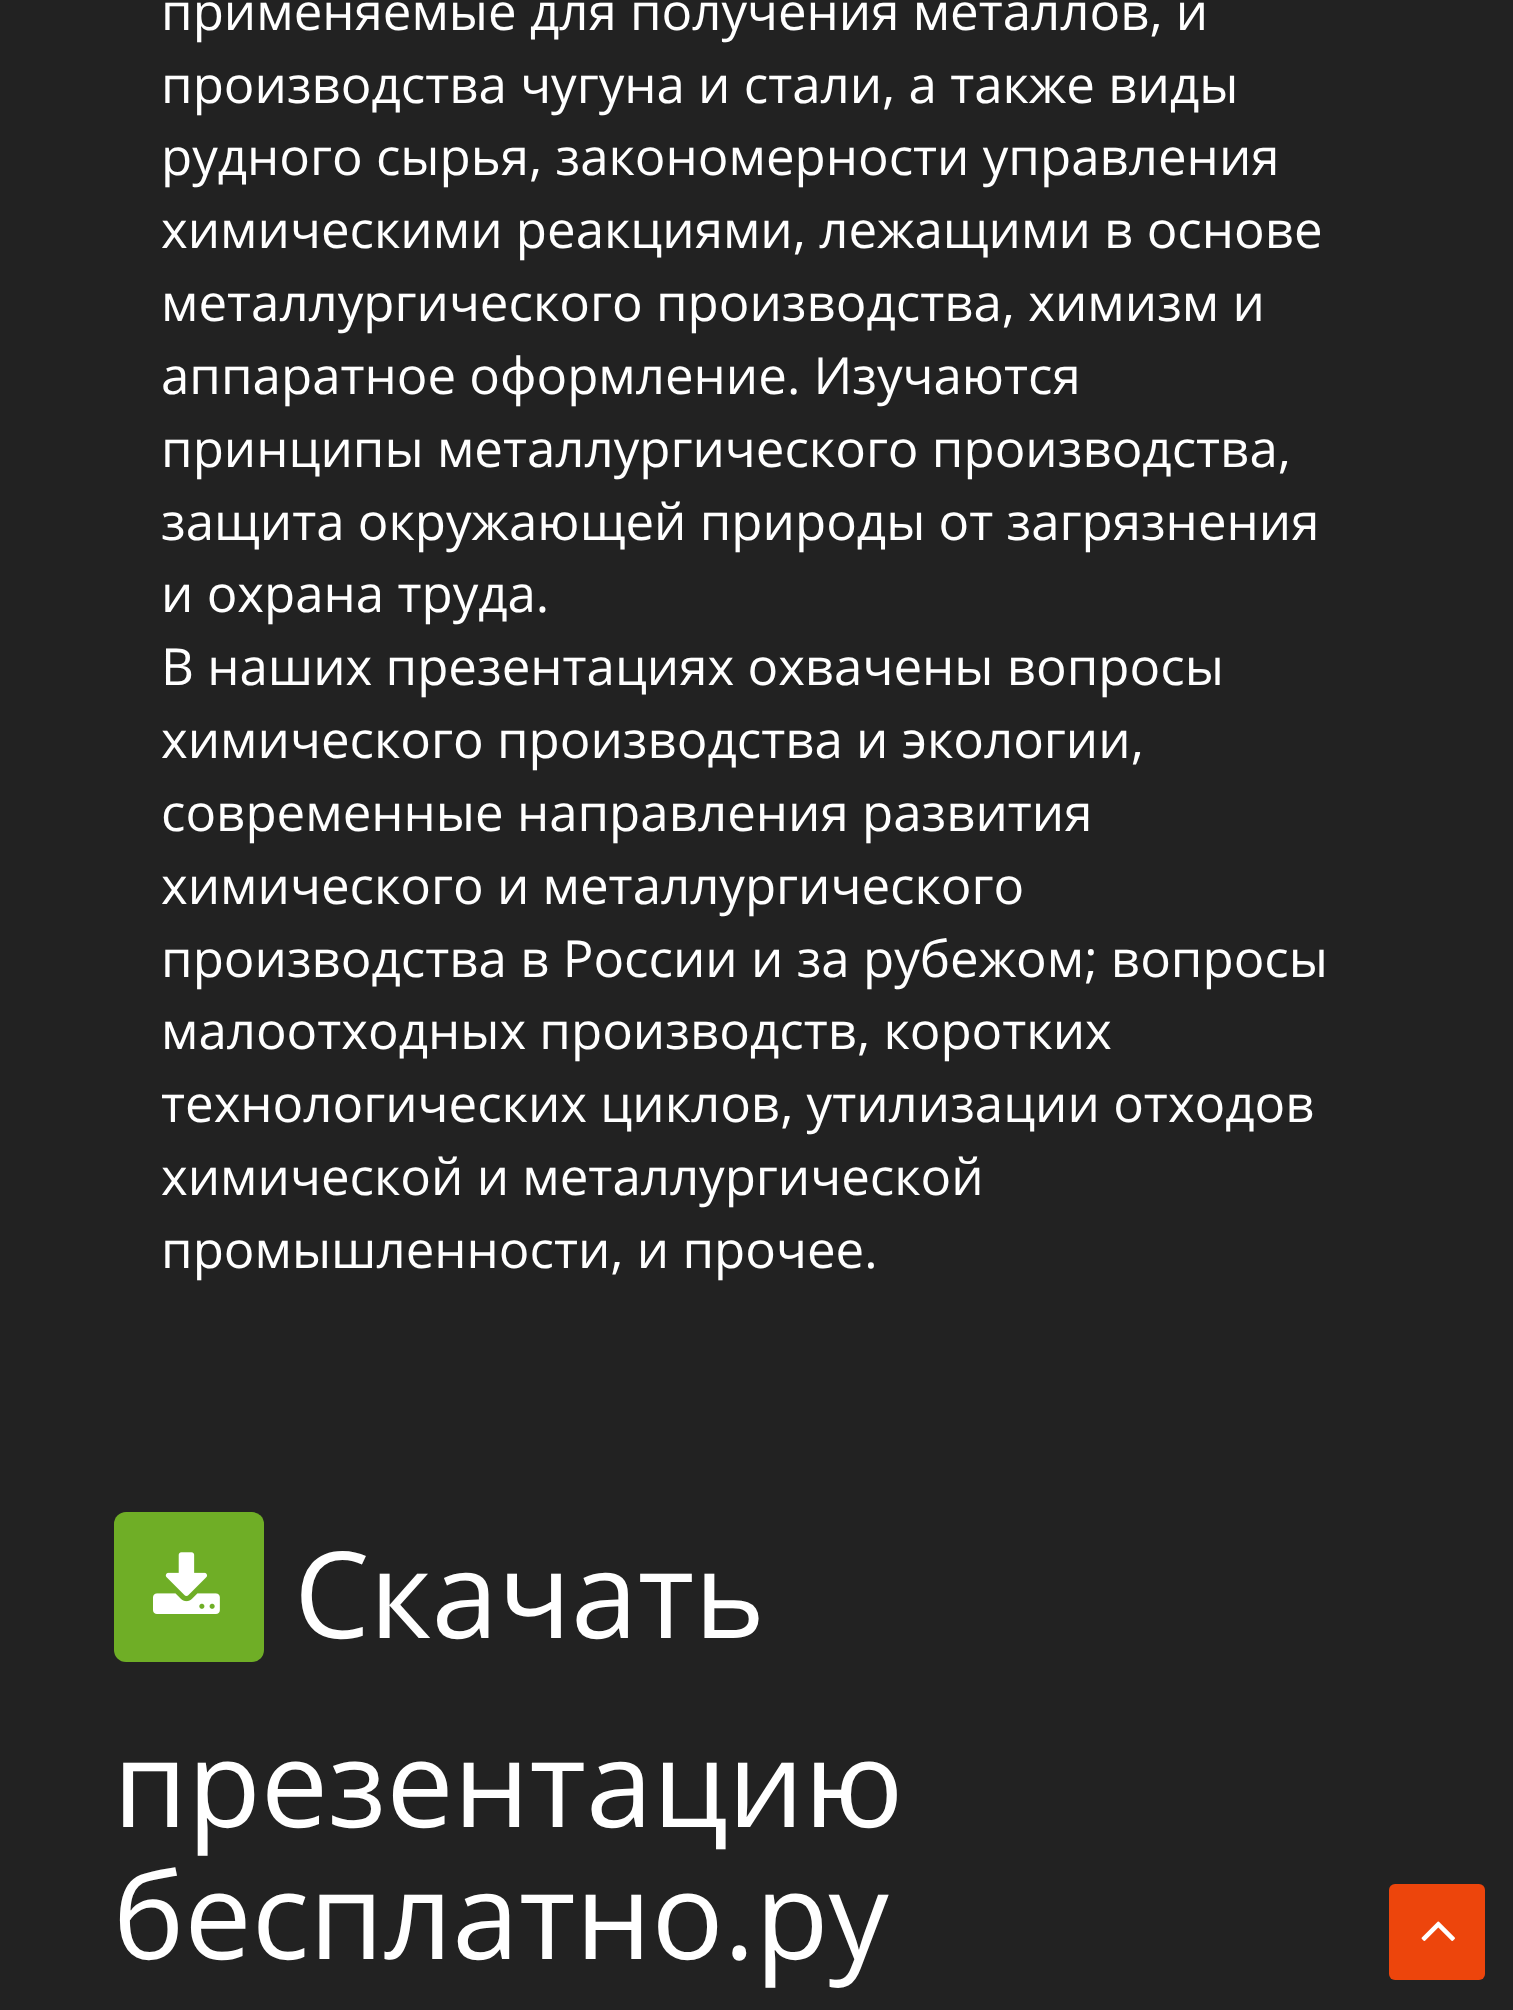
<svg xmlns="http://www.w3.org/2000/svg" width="1513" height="2010">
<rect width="100%" height="100%" fill="#222"/>
<text x="161" y="30" style="font-family:Open Sans;font-size:51px;fill:#fff">применяемые для получения металлов, и</text>
<text x="161" y="103" style="font-family:Open Sans;font-size:51px;fill:#fff">производства чугуна и стали, а также виды</text>
<text x="161" y="175" style="font-family:Open Sans;font-size:51px;fill:#fff">рудного сырья, закономерности управления</text>
<text x="161" y="248" style="font-family:Open Sans;font-size:51px;fill:#fff">химическими реакциями, лежащими в основе</text>
<text x="161" y="321" style="font-family:Open Sans;font-size:51px;fill:#fff">металлургического производства, химизм и</text>
<text x="161" y="394" style="font-family:Open Sans;font-size:51px;fill:#fff">аппаратное оформление. Изучаются</text>
<text x="161" y="467" style="font-family:Open Sans;font-size:51px;fill:#fff">принципы металлургического производства,</text>
<text x="161" y="540" style="font-family:Open Sans;font-size:51px;fill:#fff">защита окружающей природы от загрязнения</text>
<text x="161" y="612" style="font-family:Open Sans;font-size:51px;fill:#fff">и охрана труда.</text>
<text x="161" y="685" style="font-family:Open Sans;font-size:51px;fill:#fff">В наших презентациях охвачены вопросы</text>
<text x="161" y="758" style="font-family:Open Sans;font-size:51px;fill:#fff">химического производства и экологии,</text>
<text x="161" y="831" style="font-family:Open Sans;font-size:51px;fill:#fff">современные направления развития</text>
<text x="161" y="904" style="font-family:Open Sans;font-size:51px;fill:#fff">химического и металлургического</text>
<text x="161" y="977" style="font-family:Open Sans;font-size:51px;fill:#fff">производства в России и за рубежом; вопросы</text>
<text x="161" y="1049" style="font-family:Open Sans;font-size:51px;fill:#fff">малоотходных производств, коротких</text>
<text x="161" y="1122" style="font-family:Open Sans;font-size:51px;fill:#fff">технологических циклов, утилизации отходов</text>
<text x="161" y="1195" style="font-family:Open Sans;font-size:51px;fill:#fff">химической и металлургической</text>
<text x="161" y="1268" style="font-family:Open Sans;font-size:51px;fill:#fff">промышленности, и прочее.</text>
<rect x="114" y="1512" width="150" height="150" rx="12" fill="#6fae26"/>
<image x="153" y="1552" width="67" height="62" href="media/1.png"/>
<text x="294" y="1638" style="font-family:Open Sans;font-size:120px;fill:#fff">Скачать</text>
<text x="113" y="1827" style="font-family:Open Sans;font-size:120px;fill:#fff">презентацию</text>
<text x="113" y="1959" style="font-family:Open Sans;font-size:120px;fill:#fff">бесплатно.ру</text>
<rect x="1389" y="1884" width="96" height="96" rx="6" fill="#ed450c"/>
<image x="1421" y="1921" width="34" height="20" href="media/2.png"/>
</svg>
